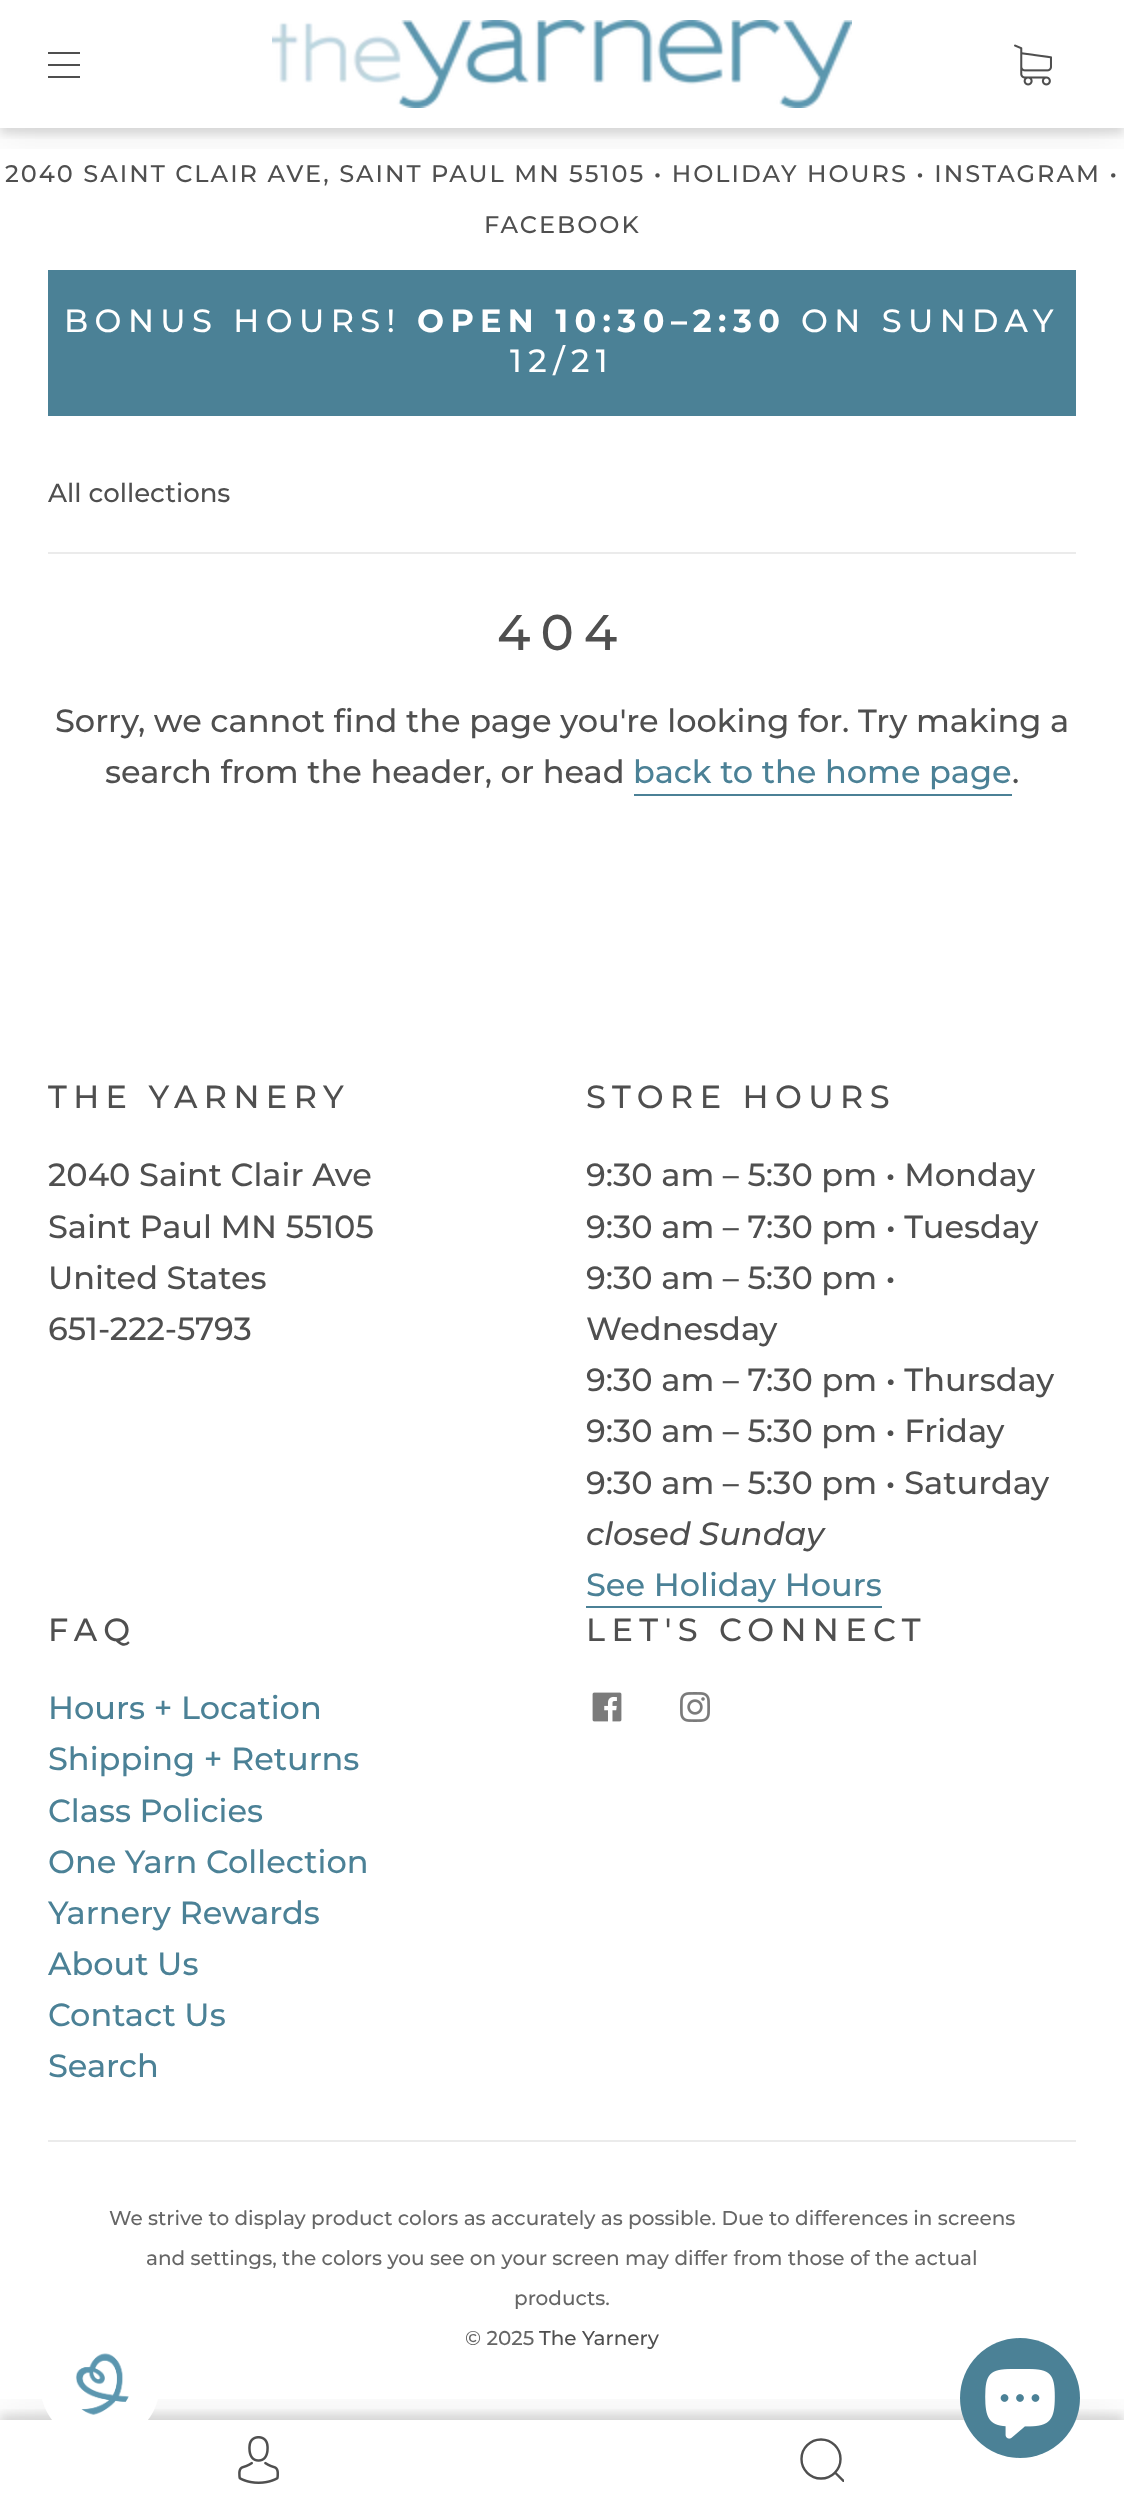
<svg xmlns="http://www.w3.org/2000/svg" width="1124" height="2499">
<defs>
<clipPath id="clip1"><rect x="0" y="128" width="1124" height="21"/></clipPath>
<clipPath id="clip2"><rect x="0" y="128" width="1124" height="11"/></clipPath>
<clipPath id="clip3"><rect x="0" y="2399" width="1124" height="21"/></clipPath>
<clipPath id="clip4"><rect x="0" y="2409" width="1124" height="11"/></clipPath>
<clipPath id="clip5"><rect x="800" y="2438" width="44" height="44"/></clipPath>
</defs>
<rect width="100%" height="100%" fill="#fff"/>
<g clip-path="url(#clip1)">
<rect y="12" width="1124" height="128" fill="#0000000f" filter="blur(20px)"/>
</g>
<g clip-path="url(#clip2)">
<rect y="6" width="1124" height="128" fill="#0000001f" filter="blur(5px)"/>
</g>
<rect x="48" y="52" width="32" height="2" fill="#4f4f4f"/>
<rect x="48" y="64" width="32" height="2" fill="#4f4f4f"/>
<rect x="48" y="76" width="32" height="2" fill="#4f4f4f"/>
<image x="272" y="20" width="580" height="88" href="media/1.png"/>
<image x="1014" y="44" width="38" height="42" href="media/2.png"/>
<text x="5" y="182" style="font-family:Montserrat;font-size:24px;font-weight:500;letter-spacing:2px;fill:#4f4f4f">2040 SAINT CLAIR AVE, SAINT PAUL MN 55105 • HOLIDAY HOURS • INSTAGRAM •</text>
<text x="484" y="233" style="font-family:Montserrat;font-size:24px;font-weight:500;letter-spacing:2px;fill:#4f4f4f">FACEBOOK</text>
<rect x="48" y="270" width="1028" height="146" fill="#4b8196"/>
<text x="64" y="332" style="font-family:Montserrat;font-size:32px;font-weight:500;letter-spacing:6.4px;fill:#fff">BONUS HOURS!</text>
<text x="417" y="332" style="font-family:Montserrat;font-size:32px;font-weight:bold;letter-spacing:6.4px;fill:#fff">OPEN 10:30–2:30</text>
<text x="801" y="332" style="font-family:Montserrat;font-size:32px;font-weight:500;letter-spacing:6.4px;fill:#fff">ON SUNDAY</text>
<text x="510" y="372" style="font-family:Montserrat;font-size:32px;font-weight:500;letter-spacing:6.4px;fill:#fff">12/21</text>
<rect x="48" y="552" width="1028" height="2" fill="#ebebeb"/>
<text x="48" y="502" style="font-family:Montserrat;font-size:26px;font-weight:500;fill:#4f4f4f">All collections</text>
<text x="497" y="650" style="font-family:Montserrat;font-size:50px;font-weight:500;letter-spacing:10px;fill:#4f4f4f">404</text>
<text x="55" y="732" style="font-family:Montserrat;font-size:32px;font-weight:500;fill:#4f4f4f">Sorry, we cannot find the page you're looking for. Try making a</text>
<text x="105" y="783" style="font-family:Montserrat;font-size:32px;font-weight:500;fill:#4f4f4f">search from the header, or head</text>
<text x="633" y="783" style="font-family:Montserrat;font-size:32px;font-weight:500;fill:#4b8196">back to the home page</text>
<rect x="634" y="794" width="378" height="2" fill="#4b8196"/>
<text x="1012" y="783" style="font-family:Montserrat;font-size:32px;font-weight:500;fill:#4f4f4f">.</text>
<text x="48" y="1108" style="font-family:Montserrat;font-size:32px;font-weight:500;letter-spacing:6.4px;fill:#4f4f4f">THE YARNERY</text>
<text x="48" y="1186" style="font-family:Montserrat;font-size:32px;font-weight:500;fill:#4f4f4f">2040 Saint Clair Ave</text>
<text x="48" y="1238" style="font-family:Montserrat;font-size:32px;font-weight:500;fill:#4f4f4f">Saint Paul MN 55105</text>
<text x="48" y="1289" style="font-family:Montserrat;font-size:32px;font-weight:500;fill:#4f4f4f">United States</text>
<text x="48" y="1340" style="font-family:Montserrat;font-size:32px;font-weight:500;fill:#4f4f4f">651-222-5793</text>
<text x="586" y="1108" style="font-family:Montserrat;font-size:32px;font-weight:500;letter-spacing:6.4px;fill:#4f4f4f">STORE HOURS</text>
<text x="586" y="1186" style="font-family:Montserrat;font-size:32px;font-weight:500;fill:#4f4f4f">9:30 am – 5:30 pm • Monday</text>
<text x="586" y="1238" style="font-family:Montserrat;font-size:32px;font-weight:500;fill:#4f4f4f">9:30 am – 7:30 pm • Tuesday</text>
<text x="586" y="1289" style="font-family:Montserrat;font-size:32px;font-weight:500;fill:#4f4f4f">9:30 am – 5:30 pm •</text>
<text x="586" y="1340" style="font-family:Montserrat;font-size:32px;font-weight:500;fill:#4f4f4f">Wednesday</text>
<text x="586" y="1391" style="font-family:Montserrat;font-size:32px;font-weight:500;fill:#4f4f4f">9:30 am – 7:30 pm • Thursday</text>
<text x="586" y="1442" style="font-family:Montserrat;font-size:32px;font-weight:500;fill:#4f4f4f">9:30 am – 5:30 pm • Friday</text>
<text x="586" y="1494" style="font-family:Montserrat;font-size:32px;font-weight:500;fill:#4f4f4f">9:30 am – 5:30 pm • Saturday</text>
<text x="586" y="1545" style="font-family:Montserrat;font-size:32px;font-weight:500;font-style:italic;fill:#4f4f4f">closed Sunday</text>
<text x="586" y="1596" style="font-family:Montserrat;font-size:32px;font-weight:500;fill:#4b8196">See Holiday Hours</text>
<rect x="586" y="1606" width="296" height="2" fill="#4b8196"/>
<text x="48" y="1641" style="font-family:Montserrat;font-size:32px;font-weight:500;letter-spacing:6.4px;fill:#4f4f4f">FAQ</text>
<text x="48" y="1719" style="font-family:Montserrat;font-size:32px;font-weight:500;fill:#4b8196">Hours + Location</text>
<text x="48" y="1770" style="font-family:Montserrat;font-size:32px;font-weight:500;fill:#4b8196">Shipping + Returns</text>
<text x="48" y="1822" style="font-family:Montserrat;font-size:32px;font-weight:500;fill:#4b8196">Class Policies</text>
<text x="48" y="1873" style="font-family:Montserrat;font-size:32px;font-weight:500;fill:#4b8196">One Yarn Collection</text>
<text x="48" y="1924" style="font-family:Montserrat;font-size:32px;font-weight:500;fill:#4b8196">Yarnery Rewards</text>
<text x="48" y="1975" style="font-family:Montserrat;font-size:32px;font-weight:500;fill:#4b8196">About Us</text>
<text x="48" y="2026" style="font-family:Montserrat;font-size:32px;font-weight:500;fill:#4b8196">Contact Us</text>
<text x="48" y="2077" style="font-family:Montserrat;font-size:32px;font-weight:500;fill:#4b8196">Search</text>
<text x="586" y="1641" style="font-family:Montserrat;font-size:32px;font-weight:500;letter-spacing:6.4px;fill:#4f4f4f">LET'S CONNECT</text>
<image x="592" y="1692" width="30" height="30" href="media/3.png"/>
<image x="680" y="1692" width="30" height="30" href="media/4.png"/>
<rect x="48" y="2140" width="1028" height="2" fill="#ebebeb"/>
<text x="109" y="2225" style="font-family:Montserrat;font-size:20px;font-weight:500;fill:#666">We strive to display product colors as accurately as possible. Due to differences in screens</text>
<text x="146" y="2265" style="font-family:Montserrat;font-size:20px;font-weight:500;fill:#666">and settings, the colors you see on your screen may differ from those of the actual</text>
<text x="514" y="2305" style="font-family:Montserrat;font-size:20px;font-weight:500;fill:#666">products.</text>
<text x="465" y="2345" style="font-family:Montserrat;font-size:20px;font-weight:500;fill:#666">© 2025</text>
<text x="539" y="2345" style="font-family:Montserrat;font-size:20px;font-weight:500;fill:#4f4f4f">The Yarnery</text>
<g clip-path="url(#clip3)">
<rect y="2408" width="1124" height="80" fill="#0000000f" filter="blur(20px)"/>
</g>
<g clip-path="url(#clip4)">
<rect y="2414" width="1124" height="80" fill="#0000001f" filter="blur(5px)"/>
</g>
<image x="238" y="2436" width="41" height="48" href="media/5.png"/>
<circle cx="821" cy="2459" r="19.5" fill="none" stroke="#4f4f4f" stroke-width="2.4"/>
<g clip-path="url(#clip5)">
<path d="M834.5 2472l14 14" fill="none" stroke="#4f4f4f" stroke-width="2.4"/>
</g>
<circle cx="100" cy="2384" r="60" fill="#fff"/>
<image x="75" y="2353" width="54" height="62" href="media/6.png"/>
<circle cx="1020" cy="2398" r="60" fill="#4b8196"/>
<image x="985" y="2369" width="70" height="70" href="media/7.png"/>
</svg>
